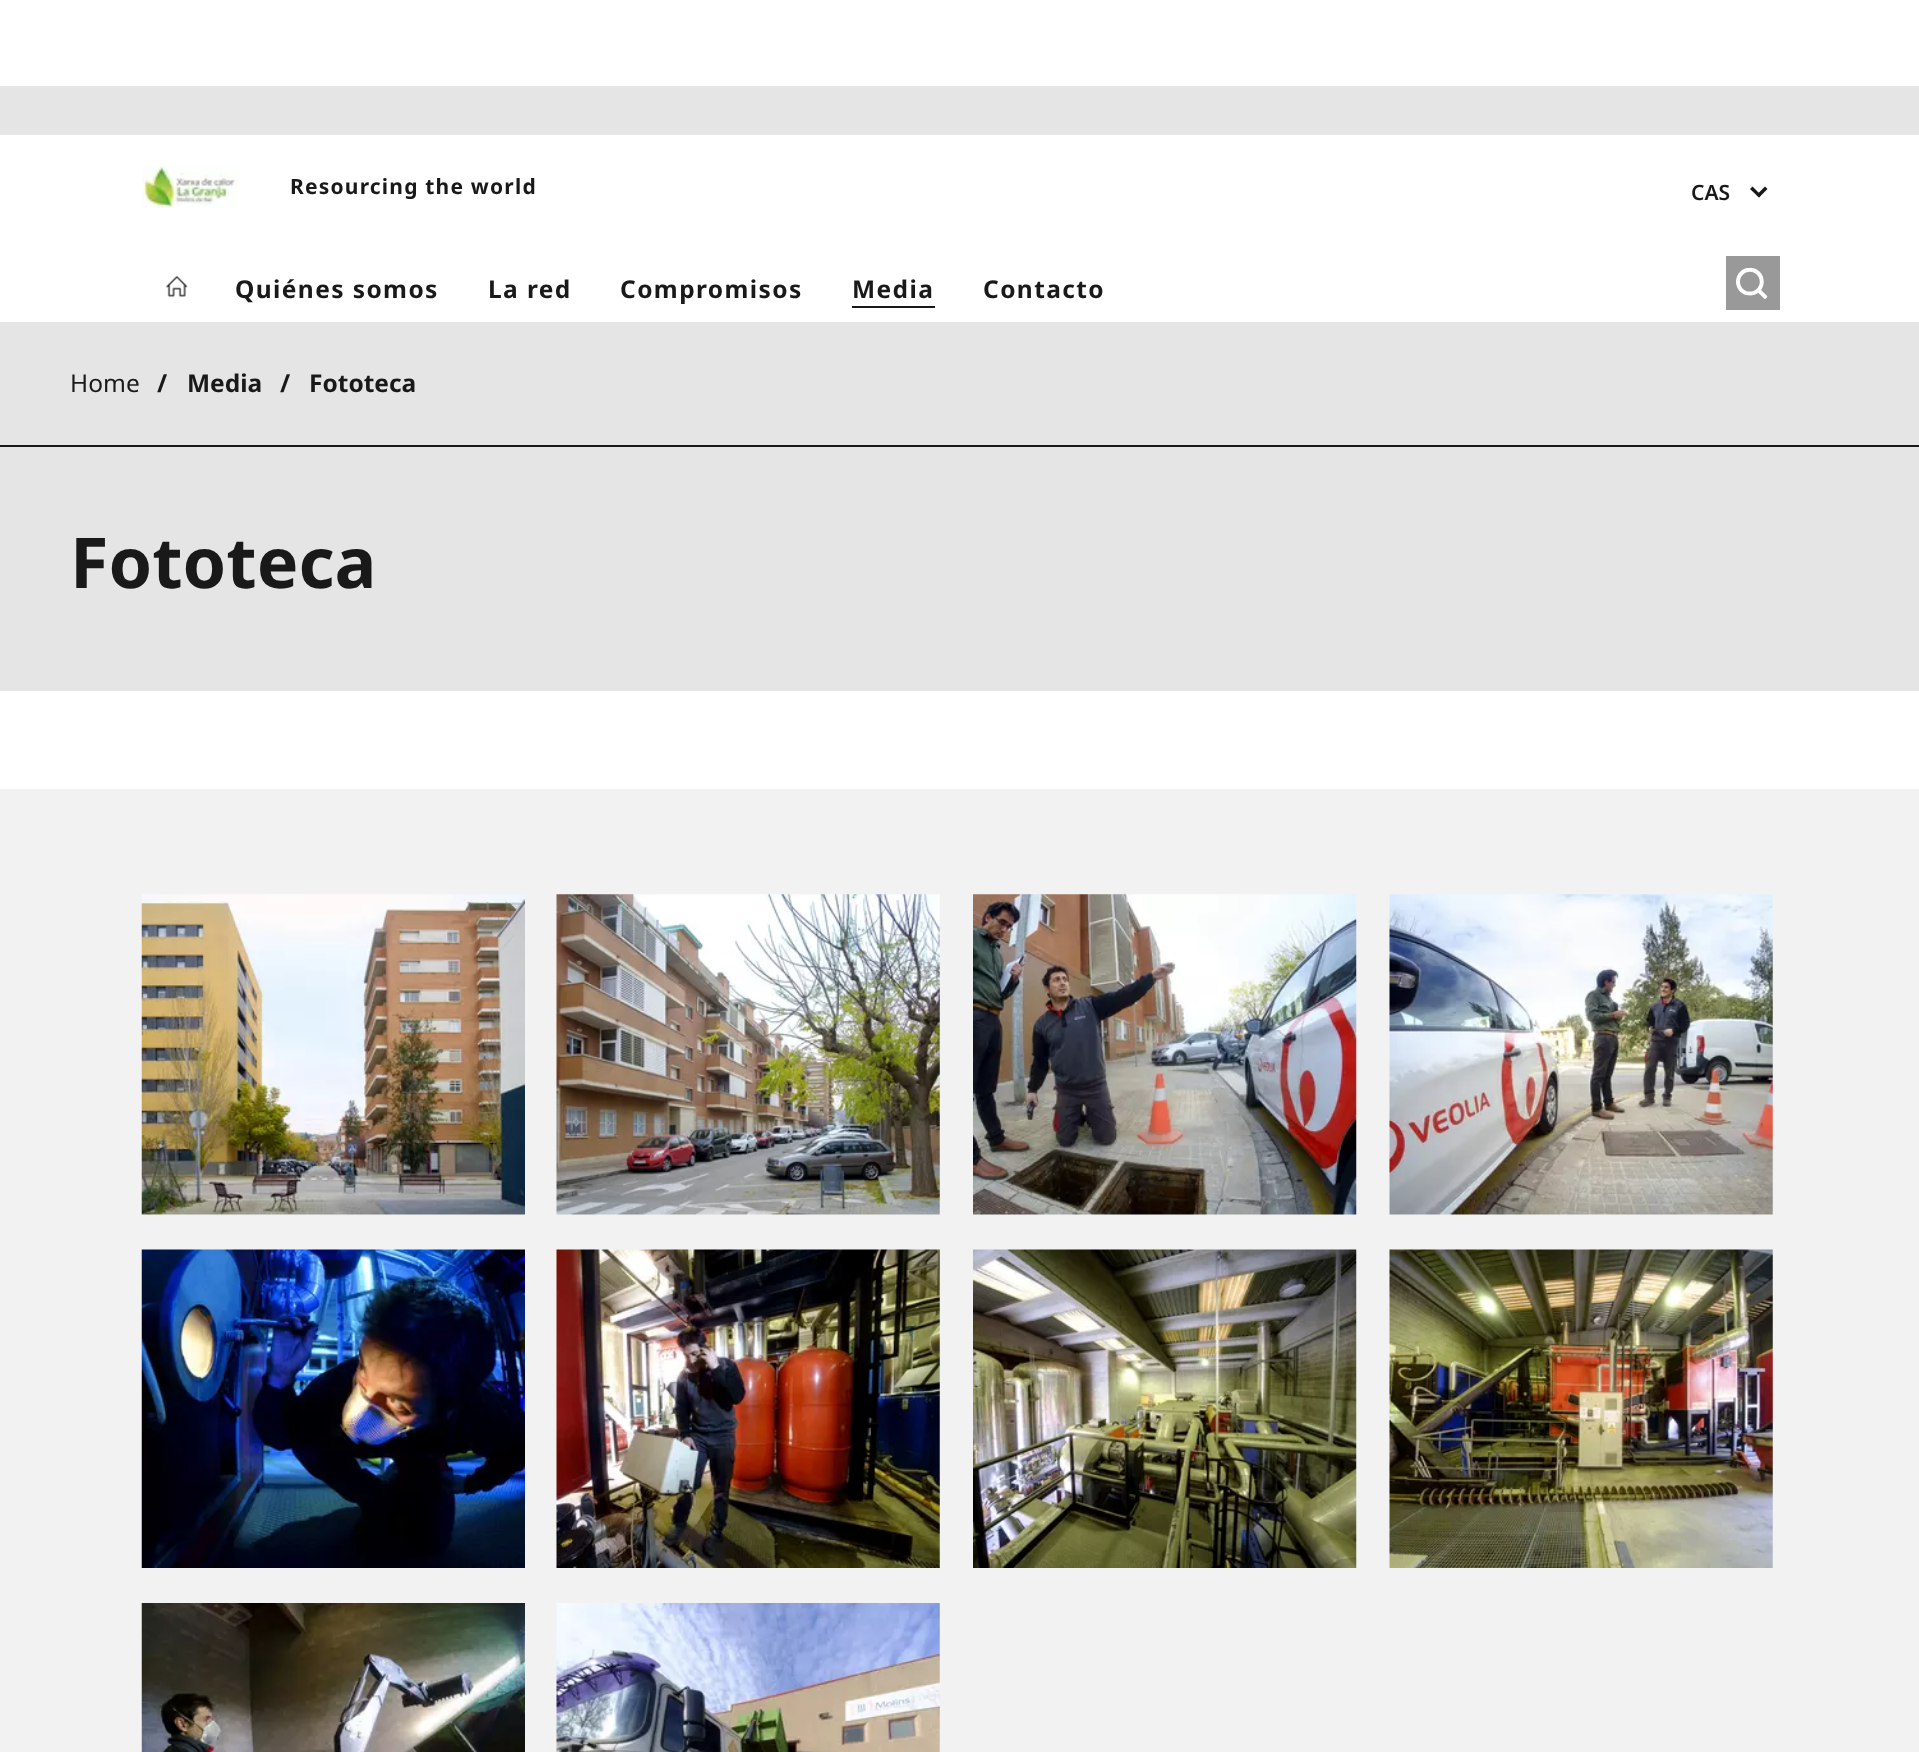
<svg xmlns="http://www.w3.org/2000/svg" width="1919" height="1752">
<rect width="100%" height="100%" fill="#fff"/>
<rect y="86" width="1919" height="605" fill="#e5e5e5"/>
<rect y="135" width="1919" height="187" fill="#fff"/>
<image x="142" y="166" width="96" height="43" href="media/1.png"/>
<text x="290" y="194" style="font-family:Noto Sans;font-size:21px;font-weight:bold;letter-spacing:1.2px;fill:#191919">Resourcing the world</text>
<text x="1691" y="200" style="font-family:Noto Sans;font-size:21px;font-weight:600;fill:#191919">CAS</text>
<path d="M1765 186.5l2.5 2.5l-8.5 8.5l-2.5-2.5z" fill="#191919"/>
<path d="M1752.5 186.5l8.5 8.5l-2 2.5l-9-8.5z" fill="#191919"/>
<image x="166" y="275" width="22" height="22" href="media/2.png"/>
<text x="235" y="298" style="font-family:Noto Sans;font-size:24.5px;font-weight:bold;letter-spacing:1.4px;fill:#191919">Quiénes somos</text>
<text x="488" y="298" style="font-family:Noto Sans;font-size:24.5px;font-weight:bold;letter-spacing:1.4px;fill:#191919">La red</text>
<text x="620" y="298" style="font-family:Noto Sans;font-size:24.5px;font-weight:bold;letter-spacing:1.4px;fill:#191919">Compromisos</text>
<text x="852" y="298" style="font-family:Noto Sans;font-size:24.5px;font-weight:bold;letter-spacing:1.4px;fill:#191919">Media</text>
<rect x="852" y="306" width="83" height="2" fill="#191919"/>
<text x="983" y="298" style="font-family:Noto Sans;font-size:24.5px;font-weight:bold;letter-spacing:1.4px;fill:#191919">Contacto</text>
<rect x="1726" y="256" width="54" height="54" fill="#999"/>
<image x="1736" y="267" width="32" height="32" href="media/3.png"/>
<text x="70" y="392" style="font-family:Noto Sans;font-size:24.5px;fill:#191919">Home</text>
<text x="157" y="392" style="font-family:Noto Sans;font-size:24.5px;font-weight:bold;fill:#191919">/</text>
<text x="187" y="392" style="font-family:Noto Sans;font-size:24.5px;font-weight:bold;fill:#191919">Media</text>
<text x="280" y="392" style="font-family:Noto Sans;font-size:24.5px;font-weight:bold;fill:#191919">/</text>
<text x="309" y="392" style="font-family:Noto Sans;font-size:24.5px;font-weight:bold;fill:#191919">Fototeca</text>
<rect y="445" width="1919" height="2" fill="#191919"/>
<text x="70" y="588" style="font-family:Noto Sans;font-size:70px;font-weight:bold;fill:#191919">Fototeca</text>
<rect y="789" width="1919" height="963" fill="#f2f2f2"/>
<image x="141" y="894" width="384" height="321" href="media/4.png"/>
<image x="556" y="894" width="384" height="321" href="media/5.png"/>
<image x="973" y="894" width="384" height="321" href="media/6.png"/>
<image x="1389" y="894" width="384" height="321" href="media/7.png"/>
<image x="141" y="1249" width="384" height="319" href="media/8.png"/>
<image x="556" y="1249" width="384" height="319" href="media/9.png"/>
<image x="973" y="1249" width="384" height="319" href="media/10.png"/>
<image x="1389" y="1249" width="384" height="319" href="media/11.png"/>
<image x="141" y="1603" width="384" height="149" href="media/12.png"/>
<image x="556" y="1603" width="384" height="149" href="media/13.png"/>
</svg>
